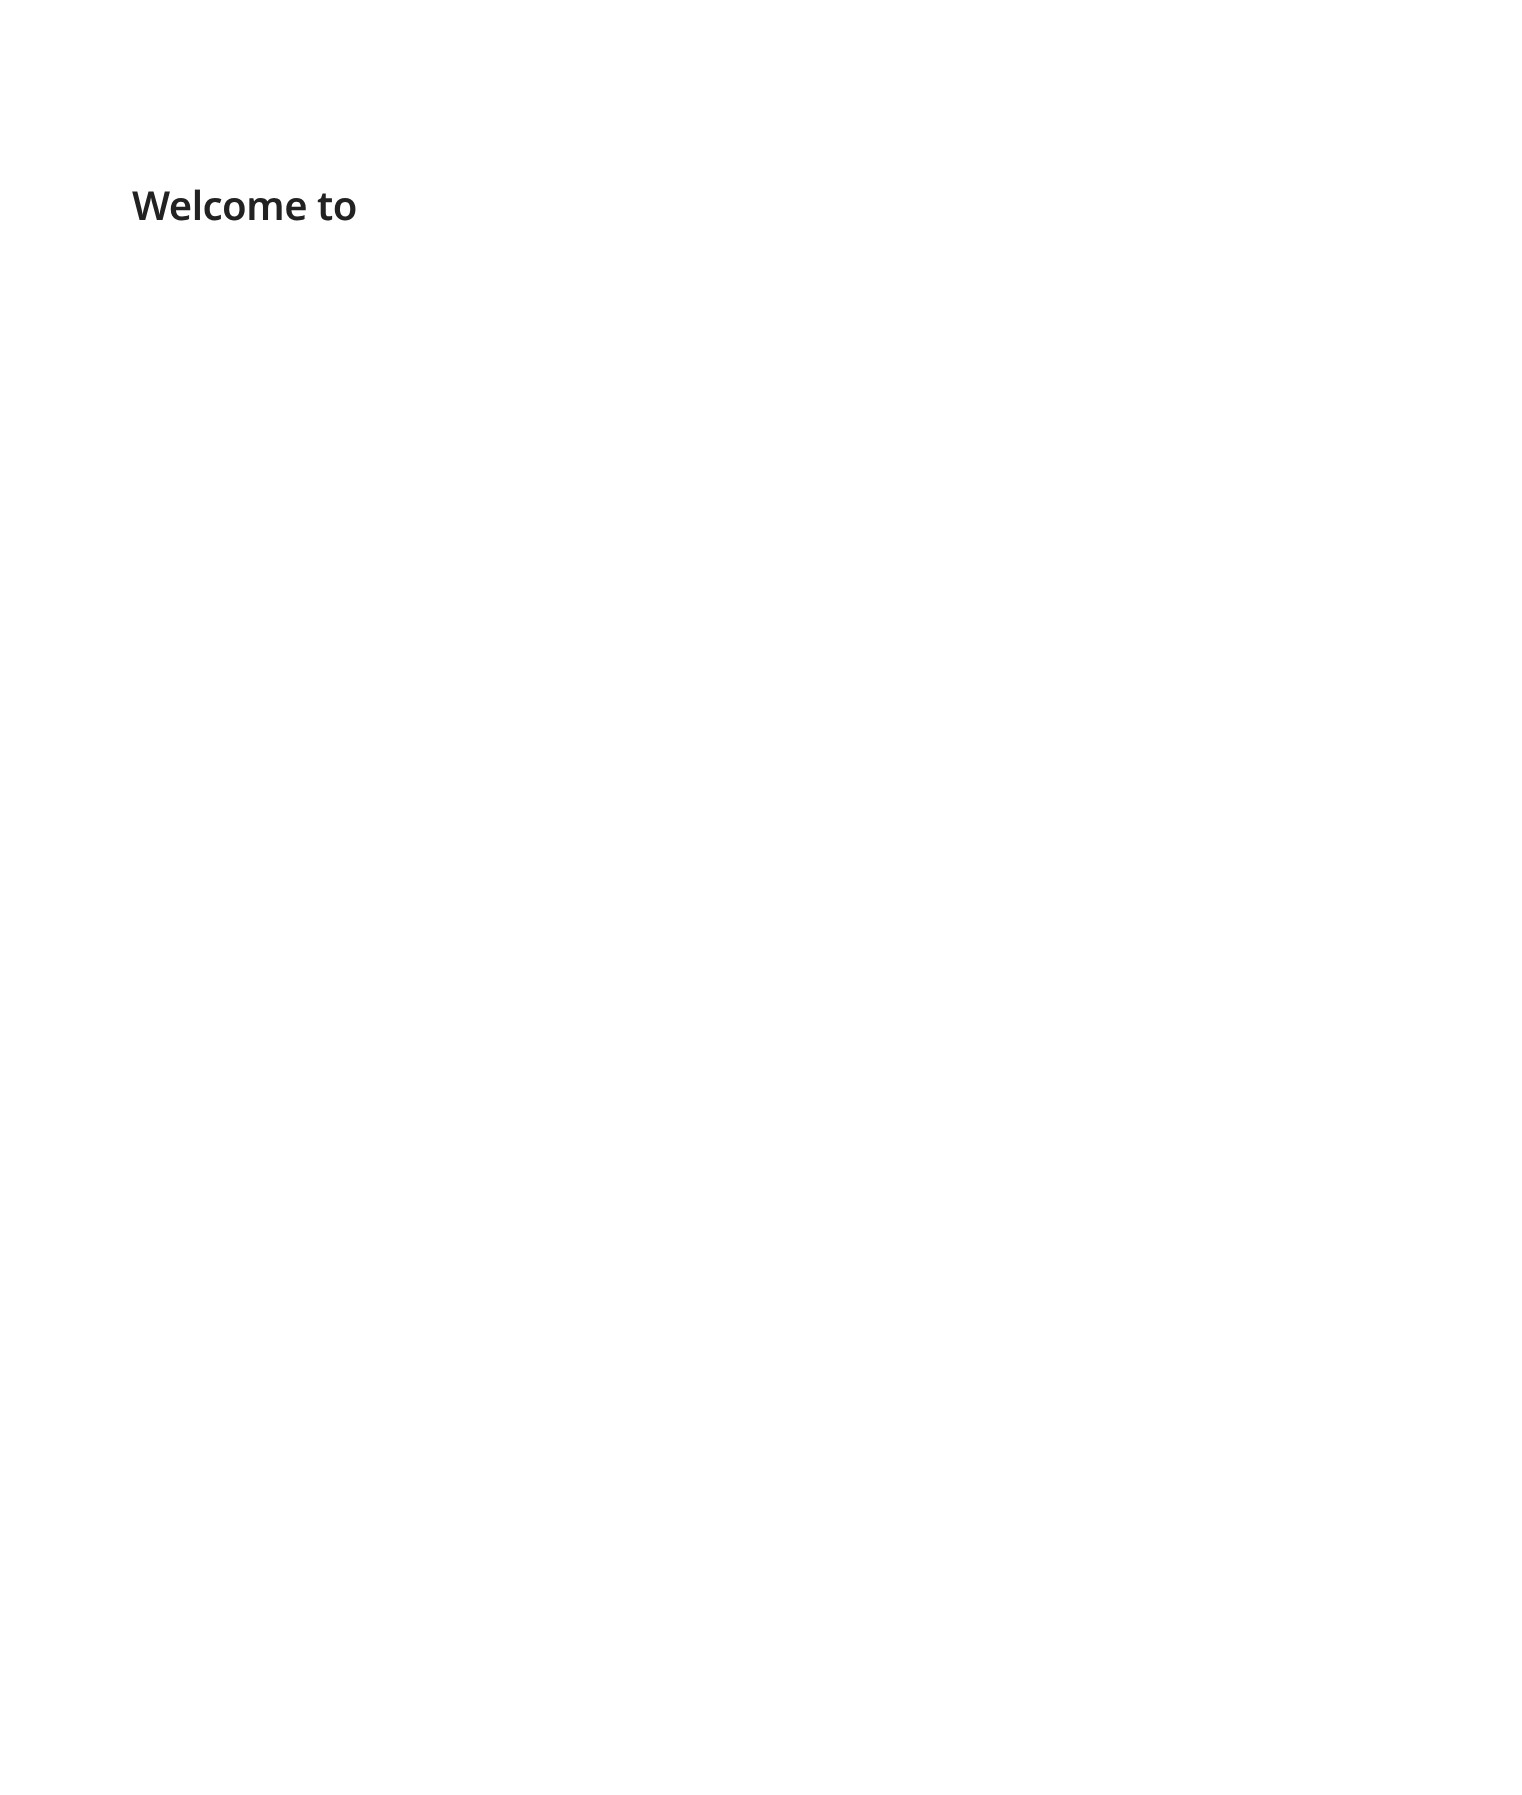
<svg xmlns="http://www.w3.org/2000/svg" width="1522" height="1795">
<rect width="100%" height="100%" fill="#fff"/>
<text x="132" y="220" style="font-family:Noto Sans;font-size:40px;font-weight:600;letter-spacing:-0.5px;fill:#222">Welcome to</text>
</svg>
